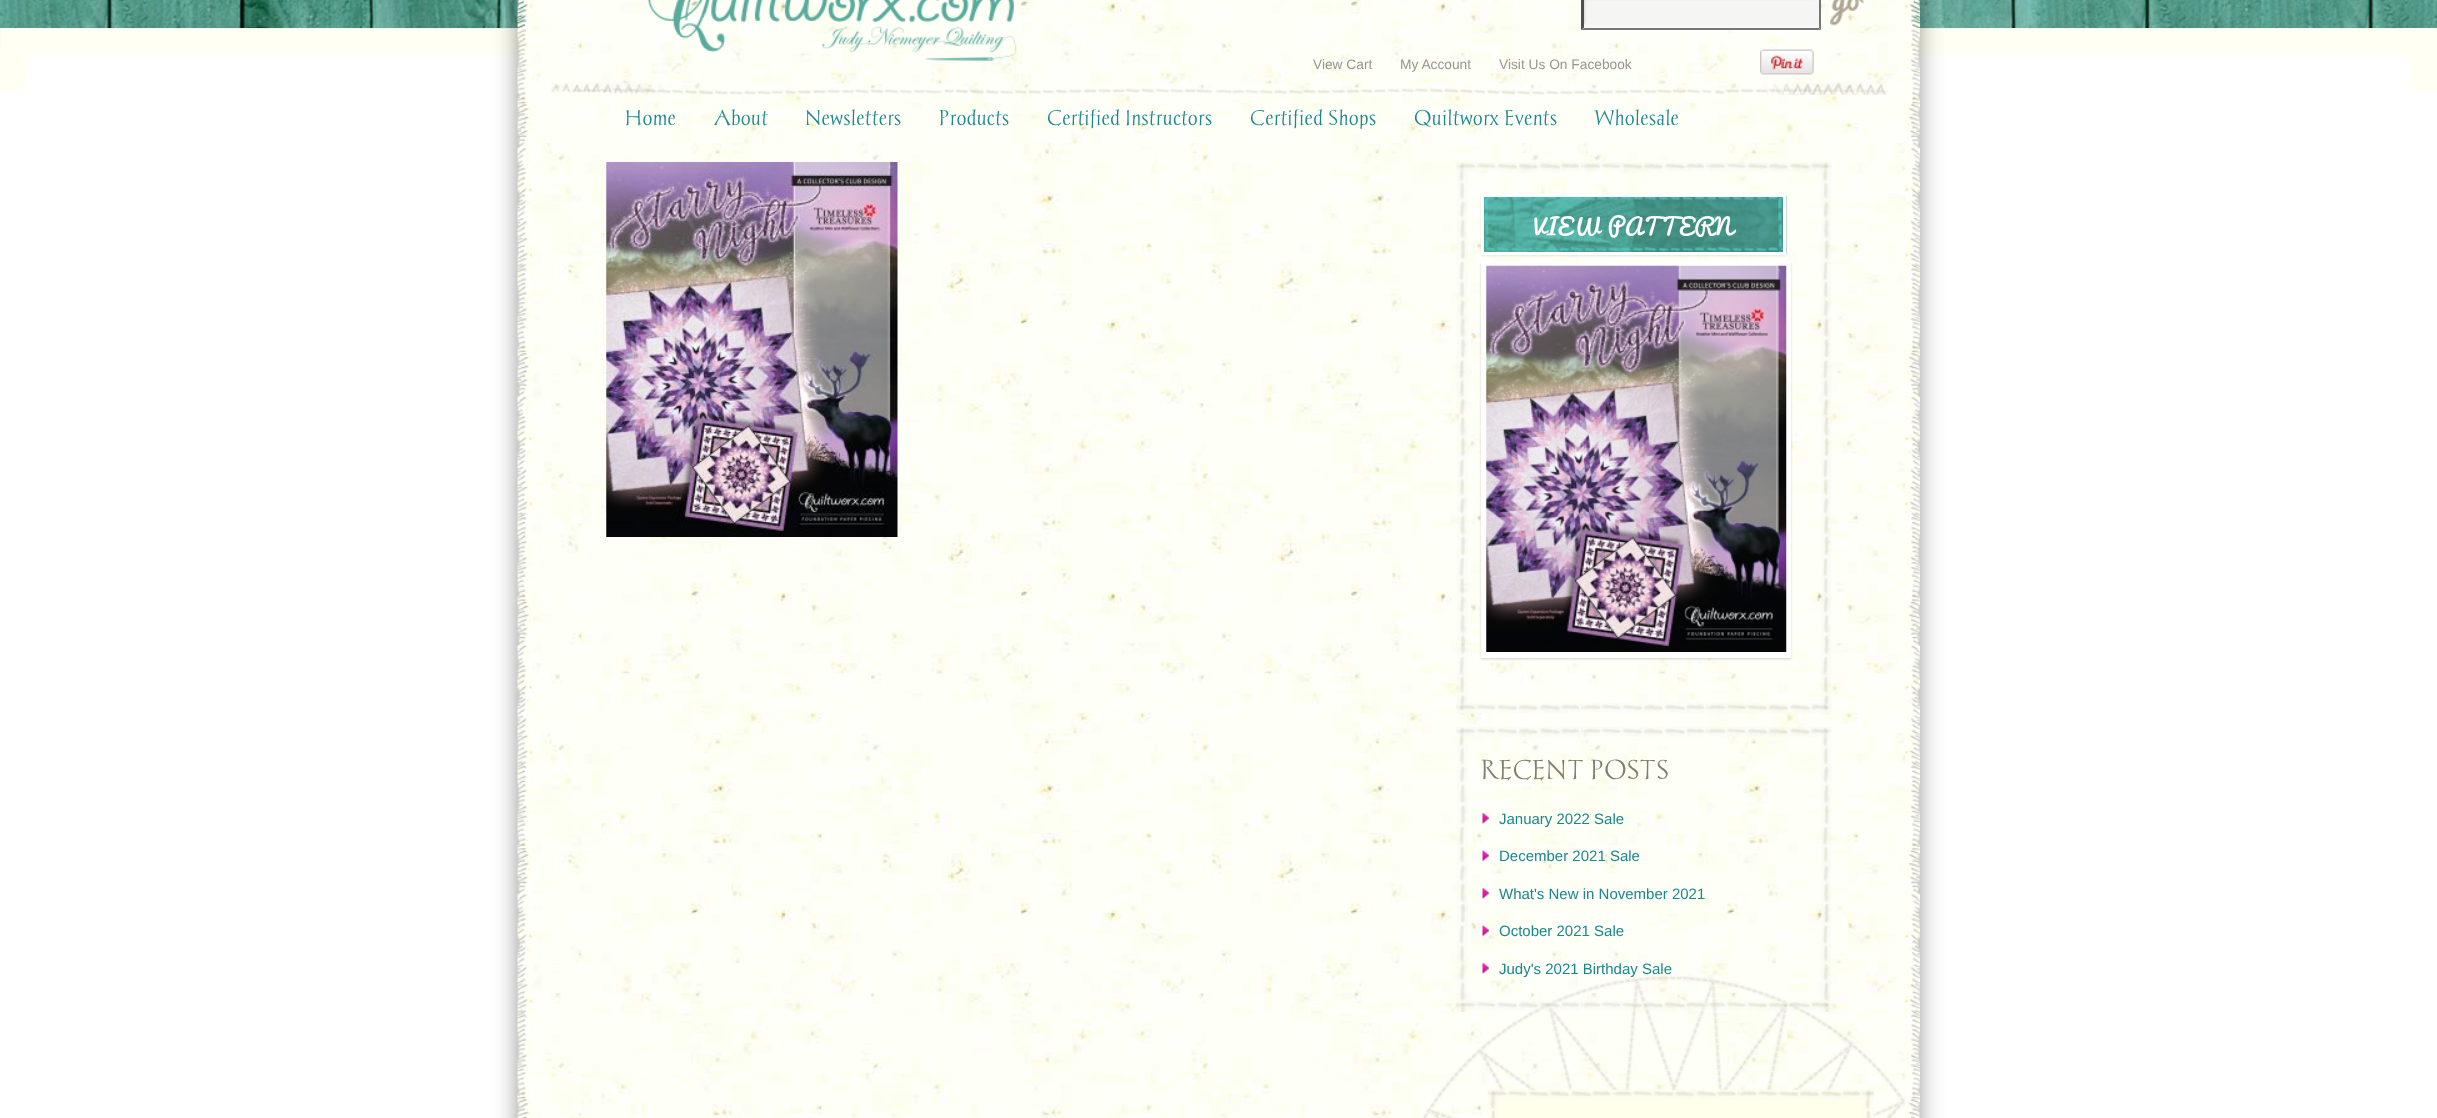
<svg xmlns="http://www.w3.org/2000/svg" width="2437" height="1118">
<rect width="100%" height="100%" fill="#fff"/>
<image x="0" y="0" width="2437" height="29" href="media/5.png"/>
<image x="0" y="28" width="2437" height="63" href="media/11.png"/>
<rect x="531" y="-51" width="1375" height="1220" fill="#000" filter="blur(17px)"/>
<image x="532" y="0" width="1373" height="1118" href="media/1.png"/>
<image x="517" y="0" width="16" height="1118" href="media/2.png"/>
<image x="1422" y="976" width="483" height="142" href="media/3.png"/>
<image x="1905" y="0" width="15" height="1118" href="media/4.png"/>
<image x="647" y="0" width="370" height="61" href="media/6.png"/>
<image x="1583" y="0" width="237" height="28" href="media/7.png"/>
<path d="M1821-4v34l-2-2.5v-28.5z" fill="#767676"/>
<path d="M1821 30h-240l3-2h235z" fill="#767676"/>
<path d="M1581 30v-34l3 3v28.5z" fill="#4f4f4f"/>
<image x="1830" y="0" width="34" height="26" href="media/8.png"/>
<image x="1760" y="49" width="54" height="26" href="media/9.png"/>
<image x="551" y="82" width="1338" height="13" href="media/10.png"/>
<text x="1313" y="69" style="font-family:Liberation Sans;font-size:13.75px;fill:#98958e">View Cart</text>
<text x="1400" y="69" style="font-family:Liberation Sans;font-size:13.75px;fill:#98958e">My Account</text>
<text x="1499" y="69" style="font-family:Liberation Sans;font-size:13.75px;fill:#98958e">Visit Us On Facebook</text>
<text x="625" y="125" style="font-family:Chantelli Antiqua;font-size:17.5px;fill:#1a868d">Home</text>
<text x="714" y="125" style="font-family:Chantelli Antiqua;font-size:17.5px;fill:#1a868d">About</text>
<text x="805" y="125" style="font-family:Chantelli Antiqua;font-size:17.5px;fill:#1a868d">Newsletters</text>
<text x="939" y="125" style="font-family:Chantelli Antiqua;font-size:17.5px;fill:#1a868d">Products</text>
<text x="1047" y="125" style="font-family:Chantelli Antiqua;font-size:17.5px;fill:#1a868d">Certified Instructors</text>
<text x="1250" y="125" style="font-family:Chantelli Antiqua;font-size:17.5px;fill:#1a868d">Certified Shops</text>
<text x="1414" y="125" style="font-family:Chantelli Antiqua;font-size:17.5px;fill:#1a868d">Quiltworx Events</text>
<text x="1594" y="125" style="font-family:Chantelli Antiqua;font-size:17.5px;fill:#1a868d">Wholesale</text>
<image x="606" y="162" width="292" height="375" href="media/12.png"/>
<image x="1456" y="162" width="376" height="553" href="media/13.png"/>
<rect x="1481" y="195" width="305" height="61" fill="#0000001a" filter="blur(1px)"/>
<image x="1484" y="193" width="303" height="62" href="media/14.png"/>
<rect x="1482.5" y="195.5" width="302" height="58" fill="none" stroke="#fff" stroke-width="3"/>
<text x="1534" y="235" style="font-family:Pacifico;font-size:22.5px;letter-spacing:1.25px;fill:#fff">VIEW PATTERN</text>
<rect x="1481" y="263" width="310" height="396" fill="#0000002e" filter="blur(1px)"/>
<rect x="1481" y="261" width="310" height="397" fill="#fff"/>
<image x="1486" y="265" width="301" height="387" href="media/15.png"/>
<image x="1456" y="727" width="376" height="285" href="media/16.png"/>
<text x="1481" y="779" style="font-family:Chantelli Antiqua;font-size:22.5px;fill:#827e6e">RECENT POSTS</text>
<image x="1482" y="812" width="8" height="12" href="media/17.png"/>
<text x="1499" y="824" style="font-family:Liberation Sans;font-size:15px;fill:#1a868d">January 2022 Sale</text>
<image x="1482" y="849" width="8" height="12" href="media/18.png"/>
<text x="1499" y="861" style="font-family:Liberation Sans;font-size:15px;fill:#1a868d">December 2021 Sale</text>
<image x="1482" y="887" width="8" height="12" href="media/19.png"/>
<text x="1499" y="899" style="font-family:Liberation Sans;font-size:15px;fill:#1a868d">What's New in November 2021</text>
<image x="1482" y="924" width="8" height="12" href="media/20.png"/>
<text x="1499" y="936" style="font-family:Liberation Sans;font-size:15px;fill:#1a868d">October 2021 Sale</text>
<image x="1482" y="962" width="8" height="12" href="media/21.png"/>
<text x="1499" y="974" style="font-family:Liberation Sans;font-size:15px;fill:#1a868d">Judy's 2021 Birthday Sale</text>
<rect x="513" y="1063" width="1411" height="1" fill="#ffffff12"/>
<rect x="1488" y="1090" width="386" height="28" fill="#ffffec"/>
<image x="1487" y="1089" width="387" height="29" href="media/22.png"/>
</svg>
